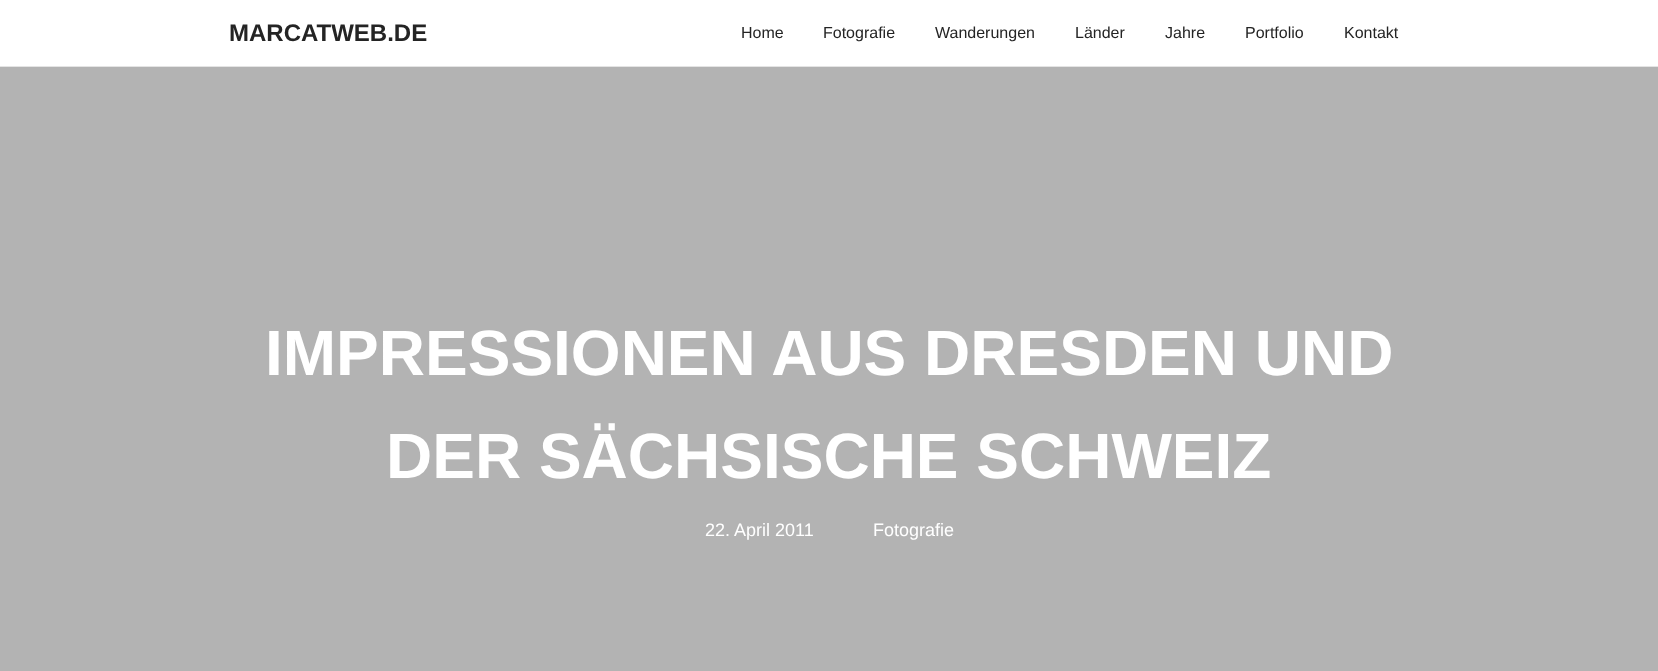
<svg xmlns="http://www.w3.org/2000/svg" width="1658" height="671">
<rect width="100%" height="100%" fill="#b3b3b3"/>
<rect width="1658" height="66" fill="#fff"/>
<rect y="66" width="1658" height="1" fill="#e4e4e4"/>
<text x="229" y="41" style="font-family:Liberation Sans;font-size:24px;font-weight:bold;fill:#242424">MARCATWEB.DE</text>
<text x="741" y="38" style="font-family:Liberation Sans;font-size:16px;fill:#242424">Home</text>
<text x="823" y="38" style="font-family:Liberation Sans;font-size:16px;fill:#242424">Fotografie</text>
<text x="935" y="38" style="font-family:Liberation Sans;font-size:16px;fill:#242424">Wanderungen</text>
<text x="1075" y="38" style="font-family:Liberation Sans;font-size:16px;fill:#242424">Länder</text>
<text x="1165" y="38" style="font-family:Liberation Sans;font-size:16px;fill:#242424">Jahre</text>
<text x="1245" y="38" style="font-family:Liberation Sans;font-size:16px;fill:#242424">Portfolio</text>
<text x="1344" y="38" style="font-family:Liberation Sans;font-size:16px;fill:#242424">Kontakt</text>
<text x="265" y="375" style="font-family:Liberation Sans;font-size:64px;font-weight:bold;fill:#fff">IMPRESSIONEN AUS DRESDEN UND</text>
<text x="386" y="478" style="font-family:Liberation Sans;font-size:64px;font-weight:bold;fill:#fff">DER SÄCHSISCHE SCHWEIZ</text>
<text x="705" y="536" style="font-family:Liberation Sans;font-size:18px;fill:#fff">22. April 2011</text>
<text x="873" y="536" style="font-family:Liberation Sans;font-size:18px;fill:#fff">Fotografie</text>
</svg>
